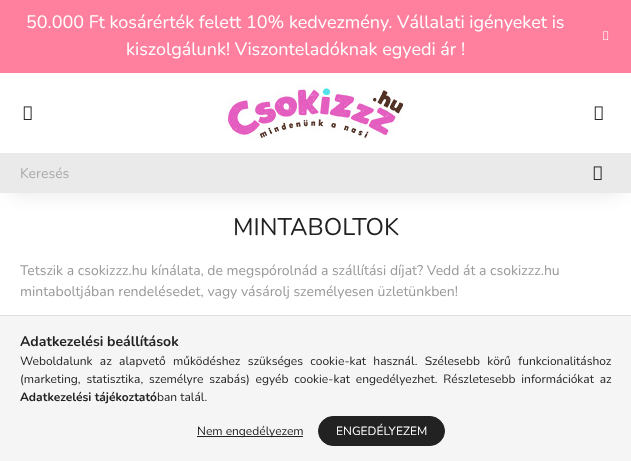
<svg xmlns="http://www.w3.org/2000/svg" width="631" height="461">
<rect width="100%" height="100%" fill="#fff"/>
<rect width="631" height="73" fill="#ff809e"/>
<text x="26" y="28" style="font-family:Nunito;font-size:18px;fill:#fff">50.000 Ft kosárérték felett 10% kedvezmény. Vállalati igényeket is</text>
<text x="126" y="55" style="font-family:Nunito;font-size:18px;fill:#fff">kiszolgálunk! Viszonteladóknak egyedi ár !</text>
<image x="603" y="31" width="6" height="9" href="media/1.png"/>
<image x="23" y="106" width="9" height="14" href="media/2.png"/>
<image x="226" y="83" width="180" height="56" href="media/3.png"/>
<image x="594" y="106" width="9" height="14" href="media/2.png"/>
<rect x="10" y="173" width="611" height="20" fill="#0000001a" filter="blur(10px)"/>
<rect y="153" width="631" height="40" fill="#eaeaea"/>
<text x="20" y="178" style="font-family:Nunito;font-size:14px;fill:#aaa">Keresés</text>
<image x="593" y="166" width="9" height="14" href="media/4.png"/>
<text x="233" y="235" style="font-family:Nunito;font-size:24px;fill:#222">MINTABOLTOK</text>
<text x="20" y="275" style="font-family:Nunito;font-size:14px;fill:#999">Tetszik a csokizzz.hu kínálata, de megspórolnád a szállítási díjat? Vedd át a csokizzz.hu</text>
<text x="20" y="296" style="font-family:Nunito;font-size:14px;fill:#999">mintaboltjában rendelésedet, vagy vásárolj személyesen üzletünkben!</text>
<rect y="316" width="631" height="145" fill="#f5f5f5"/>
<rect y="315" width="631" height="1" fill="#ddd"/>
<text x="20" y="346" style="font-family:Nunito;font-size:14px;font-weight:bold;fill:#222">Adatkezelési beállítások</text>
<text x="20" y="365" word-spacing="4.25" style="font-family:Nunito;font-size:12px;fill:#222">Weboldalunk az alapvető működéshez szükséges cookie-kat használ. Szélesebb körű funkcionalitáshoz</text>
<text x="20" y="383" word-spacing="2.75" style="font-family:Nunito;font-size:12px;fill:#222">(marketing, statisztika, személyre szabás) egyéb cookie-kat engedélyezhet. Részletesebb információkat az</text>
<text x="20" y="401" style="font-family:Nunito;font-size:12px;font-weight:bold;fill:#222">Adatkezelési tájékoztató</text>
<text x="157" y="401" style="font-family:Nunito;font-size:12px;fill:#222">ban talál.</text>
<rect x="197" y="436" width="106" height="1" fill="#222"/>
<text x="197" y="435" style="font-family:Nunito;font-size:12px;fill:#222">Nem engedélyezem</text>
<rect x="318.5" y="416.5" width="126" height="29" rx="14.5" fill="#222" stroke="#222"/>
<text x="336" y="435" style="font-family:Nunito;font-size:12px;fill:#fff">ENGEDÉLYEZEM</text>
</svg>
